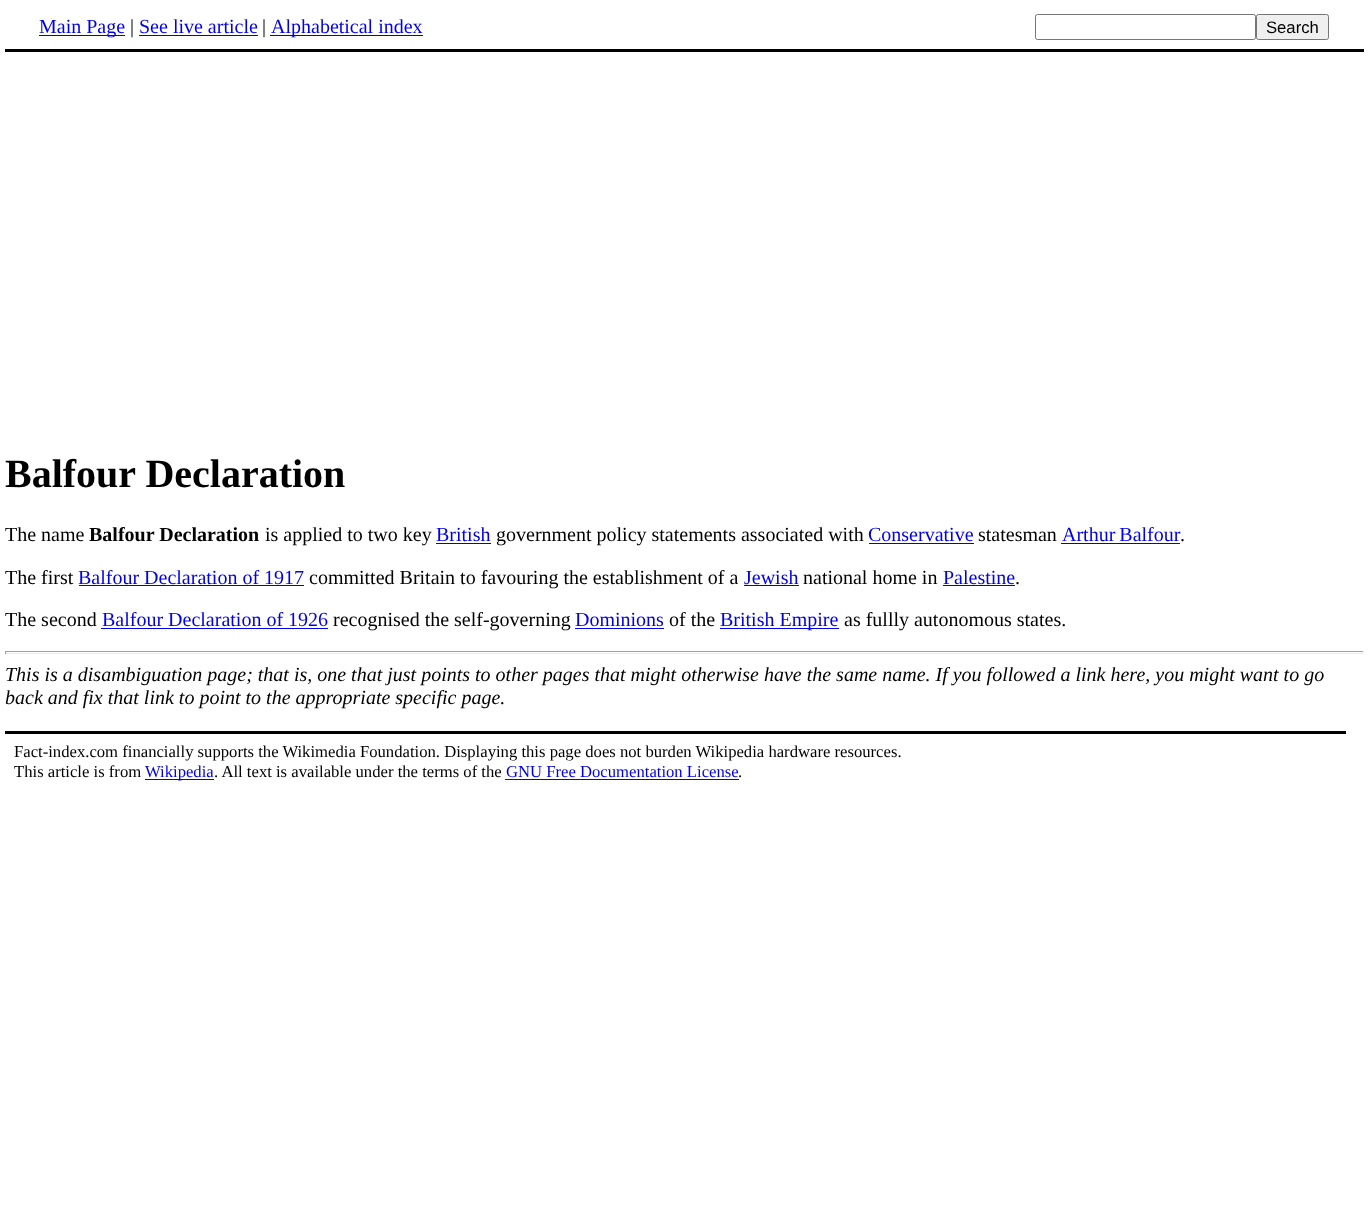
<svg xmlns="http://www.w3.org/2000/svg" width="1368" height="1207">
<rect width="100%" height="100%" fill="#fff"/>
<rect x="5" y="49" width="1359" height="3" fill="#000"/>
<rect x="39" y="35" width="86" height="1" fill="#00e"/>
<text x="39" y="33" style="font-family:Liberation Serif;font-size:20px;fill:#00e">Main Page</text>
<text x="130" y="33" style="font-family:Liberation Serif;font-size:20px;fill:#000">|</text>
<text x="139" y="33" style="font-family:Liberation Serif;font-size:20px;fill:#00e">See live article</text>
<rect x="139" y="35" width="119" height="1" fill="#00e"/>
<text x="262" y="33" style="font-family:Liberation Serif;font-size:20px;fill:#000">|</text>
<rect x="270" y="35" width="153" height="1" fill="#00e"/>
<text x="271" y="33" style="font-family:Liberation Serif;font-size:20px;fill:#00e">Alphabetical index</text>
<rect x="1035.5" y="14.5" width="220" height="25" rx="2" fill="none" stroke="#767676"/>
<rect x="1256.5" y="14.5" width="72" height="25" rx="2" fill="#efefef" stroke="#767676"/>
<text x="1266" y="33" style="font-family:Liberation Sans;font-size:16.67px;fill:#000">Search</text>
<text x="5" y="487" style="font-family:Liberation Serif;font-size:40px;font-weight:bold;fill:#000">Balfour Declaration</text>
<text x="5" y="541" style="font-family:Liberation Serif;font-size:20px;fill:#000">The name</text>
<text x="89" y="541" style="font-family:Liberation Serif;font-size:20px;font-weight:bold;fill:#000">Balfour Declaration</text>
<text x="265" y="541" style="font-family:Liberation Serif;font-size:20px;fill:#000">is applied to two key</text>
<text x="436" y="541" style="font-family:Liberation Serif;font-size:20px;fill:#00e">British</text>
<rect x="436" y="543" width="55" height="1" fill="#00e"/>
<text x="496" y="541" style="font-family:Liberation Serif;font-size:20px;fill:#000">government policy statements associated with</text>
<text x="868" y="541" style="font-family:Liberation Serif;font-size:20px;fill:#00e">Conservative</text>
<rect x="869" y="543" width="105" height="1" fill="#00e"/>
<text x="978" y="541" style="font-family:Liberation Serif;font-size:20px;fill:#000">statesman</text>
<text x="1062" y="541" word-spacing="-1" style="font-family:Liberation Serif;font-size:20px;fill:#00e">Arthur Balfour</text>
<rect x="1061" y="543" width="119" height="1" fill="#00e"/>
<text x="1180" y="541" style="font-family:Liberation Serif;font-size:20px;fill:#000">.</text>
<text x="5" y="584" style="font-family:Liberation Serif;font-size:20px;fill:#000">The first</text>
<text x="78" y="584" style="font-family:Liberation Serif;font-size:20px;fill:#00e">Balfour Declaration of 1917</text>
<rect x="79" y="585" width="225" height="1" fill="#00e"/>
<text x="309" y="584" style="font-family:Liberation Serif;font-size:20px;fill:#000">committed Britain to favouring the establishment of a</text>
<text x="744" y="584" style="font-family:Liberation Serif;font-size:20px;fill:#00e">Jewish</text>
<rect x="744" y="585" width="55" height="1" fill="#00e"/>
<text x="803" y="584" style="font-family:Liberation Serif;font-size:20px;fill:#000">national home in</text>
<text x="943" y="584" style="font-family:Liberation Serif;font-size:20px;fill:#00e">Palestine</text>
<rect x="943" y="585" width="72" height="1" fill="#00e"/>
<text x="1015" y="584" style="font-family:Liberation Serif;font-size:20px;fill:#000">.</text>
<text x="5" y="626" style="font-family:Liberation Serif;font-size:20px;fill:#000">The second</text>
<text x="102" y="626" style="font-family:Liberation Serif;font-size:20px;fill:#00e">Balfour Declaration of 1926</text>
<rect x="101" y="628" width="227" height="1" fill="#00e"/>
<text x="333" y="626" style="font-family:Liberation Serif;font-size:20px;fill:#000">recognised the self-governing</text>
<text x="575" y="626" style="font-family:Liberation Serif;font-size:20px;fill:#00e">Dominions</text>
<rect x="575" y="628" width="89" height="1" fill="#00e"/>
<text x="669" y="626" style="font-family:Liberation Serif;font-size:20px;fill:#000">of the</text>
<rect x="720" y="628" width="119" height="1" fill="#00e"/>
<text x="720" y="626" style="font-family:Liberation Serif;font-size:20px;fill:#00e">British Empire</text>
<text x="844" y="626" style="font-family:Liberation Serif;font-size:20px;fill:#000">as fullly autonomous states.</text>
<rect x="5" y="651" width="1359" height="1" fill="#9f9f9f"/>
<rect x="1363" y="651" width="1" height="3" fill="#eee"/>
<rect x="5" y="653" width="1359" height="1" fill="#eee"/>
<rect x="5" y="651" width="1" height="3" fill="#9f9f9f"/>
<text x="5" y="681" style="font-family:Liberation Serif;font-size:20px;font-style:italic;fill:#000">This is a disambiguation page; that is, one that just points to other pages that might otherwise have the same name. If you followed a link here, you might want to go</text>
<text x="5" y="704" style="font-family:Liberation Serif;font-size:20px;font-style:italic;fill:#000">back and fix that link to point to the appropriate specific page.</text>
<rect x="5" y="731" width="1341" height="3" fill="#000"/>
<text x="14" y="757" style="font-family:Liberation Serif;font-size:16.67px;fill:#000">Fact-index.com financially supports the Wikimedia Foundation. Displaying this page does not burden Wikipedia hardware resources.</text>
<text x="14" y="777" style="font-family:Liberation Serif;font-size:16.67px;fill:#000">This article is from</text>
<rect x="145" y="779" width="69" height="1" fill="#00e"/>
<text x="145" y="777" style="font-family:Liberation Serif;font-size:16.67px;fill:#00e">Wikipedia</text>
<text x="214" y="777" style="font-family:Liberation Serif;font-size:16.67px;fill:#000">. All text is available under the terms of the</text>
<text x="506" y="777" style="font-family:Liberation Serif;font-size:16.67px;fill:#00e">GNU Free Documentation License</text>
<text x="738" y="777" style="font-family:Liberation Serif;font-size:16.67px;fill:#000">.</text>
<rect x="505" y="779" width="234" height="1" fill="#00e"/>
</svg>
